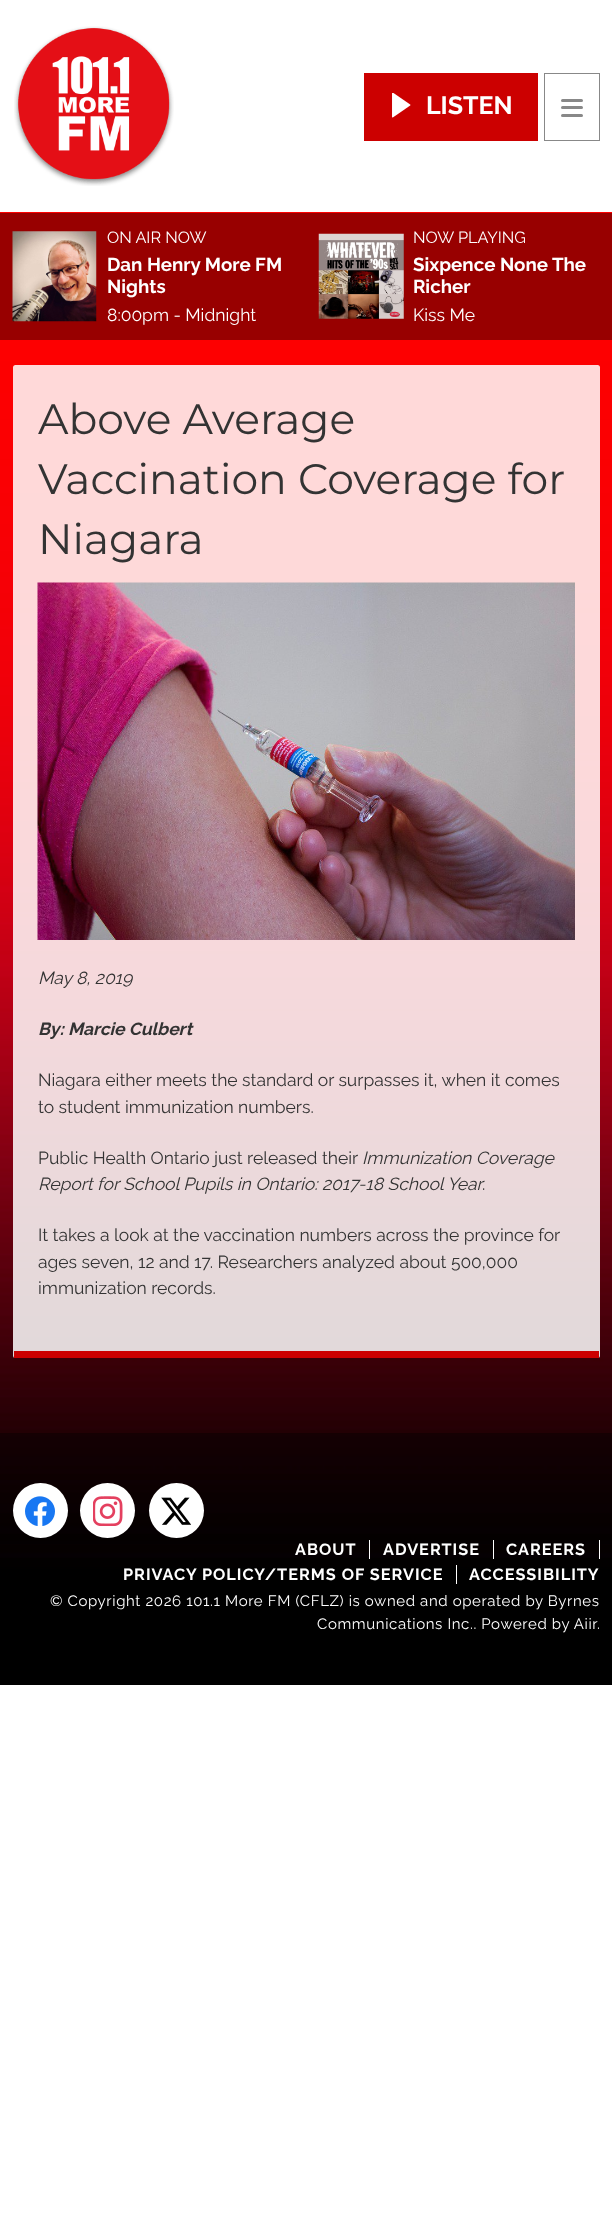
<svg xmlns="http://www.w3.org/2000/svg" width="612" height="2219">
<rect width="100%" height="100%" fill="#fff"/>
<image x="14" y="26" width="160" height="160" href="media/1.png"/>
<rect x="364" y="73" width="174" height="68" fill="#c00"/>
<image x="392" y="93" width="19" height="25" href="media/2.png"/>
<text x="426" y="114" style="font-family:Raleway;font-size:25px;font-weight:bold;fill:#fff">LISTEN</text>
<rect x="544.5" y="73.5" width="55" height="67" fill="none" stroke="#888"/>
<rect x="561" y="99" width="22" height="3" rx="1.5" fill="#888"/>
<rect x="561" y="106" width="22" height="3" rx="1.5" fill="#888"/>
<rect x="561" y="114" width="22" height="3" rx="1.5" fill="#888"/>
<image x="0" y="212" width="612" height="1473" href="media/3.png"/>
<rect y="213" width="612" height="127" fill="#980000"/>
<image x="12" y="231" width="85" height="91" href="media/4.png"/>
<text x="107" y="243" style="font-family:Raleway;font-size:16.25px;fill:#fff">ON AIR NOW</text>
<text x="107" y="271" style="font-family:Raleway;font-size:18.75px;font-weight:bold;fill:#fff">Dan Henry More FM</text>
<text x="107" y="293" style="font-family:Raleway;font-size:18.75px;font-weight:bold;fill:#fff">Nights</text>
<text x="107" y="321" style="font-family:Raleway;font-size:17.5px;fill:#fff">8:00pm - Midnight</text>
<image x="318" y="233" width="86" height="86" href="media/5.png"/>
<text x="413" y="243" style="font-family:Raleway;font-size:16.25px;fill:#fff">NOW PLAYING</text>
<text x="413" y="271" style="font-family:Raleway;font-size:18.75px;font-weight:bold;fill:#fff">Sixpence None The</text>
<text x="413" y="293" style="font-family:Raleway;font-size:18.75px;font-weight:bold;fill:#fff">Richer</text>
<text x="413" y="321" style="font-family:Raleway;font-size:17.5px;fill:#fff">Kiss Me</text>
<rect x="13" y="365" width="587" height="993" rx="2.5" fill="#ffffffd9"/>
<rect x="14" y="1351" width="585" height="7" fill="#c00"/>
<text x="38" y="434" style="font-family:Montserrat;font-size:42.5px;fill:#333">Above Average</text>
<text x="38" y="494" style="font-family:Montserrat;font-size:42.5px;fill:#333">Vaccination Coverage for</text>
<text x="38" y="554" style="font-family:Montserrat;font-size:42.5px;fill:#333">Niagara</text>
<image x="37" y="582" width="538" height="358" href="media/6.png"/>
<text x="38" y="984" style="font-family:Raleway;font-size:17.5px;font-style:italic;fill:#333">May 8, 2019</text>
<text x="38" y="1035" style="font-family:Raleway;font-size:17.5px;font-weight:bold;font-style:italic;fill:#333">By: Marcie Culbert</text>
<text x="38" y="1086" style="font-family:Raleway;font-size:17.5px;fill:#333">Niagara either meets the standard or surpasses it, when it comes</text>
<text x="38" y="1113" style="font-family:Raleway;font-size:17.5px;fill:#333">to student immunization numbers.</text>
<text x="38" y="1164" style="font-family:Raleway;font-size:17.5px;fill:#333">Public Health Ontario just released their</text>
<text x="362" y="1164" style="font-family:Raleway;font-size:17.5px;font-style:italic;fill:#333">Immunization Coverage</text>
<text x="38" y="1190" style="font-family:Raleway;font-size:17.5px;font-style:italic;fill:#333">Report for School Pupils in Ontario: 2017-18 School Year</text>
<text x="482" y="1190" style="font-family:Raleway;font-size:17.5px;fill:#333">.</text>
<text x="38" y="1241" style="font-family:Raleway;font-size:17.5px;fill:#333">It takes a look at the vaccination numbers across the province for</text>
<text x="38" y="1268" style="font-family:Raleway;font-size:17.5px;fill:#333">ages seven, 12 and 17. Researchers analyzed about 500,000</text>
<text x="38" y="1294" style="font-family:Raleway;font-size:17.5px;fill:#333">immunization records.</text>
<rect y="1433" width="612" height="111" fill="#00000066"/>
<circle cx="40.5" cy="1510.5" r="27.5" fill="#fff"/>
<image x="25" y="1496" width="30" height="30" href="media/7.png"/>
<circle cx="107.5" cy="1510.5" r="27.5" fill="#fff"/>
<image x="93" y="1496" width="30" height="30" href="media/8.png"/>
<circle cx="176.5" cy="1510.5" r="27.5" fill="#fff"/>
<image x="161" y="1497" width="30" height="28" href="media/9.png"/>
<text x="295" y="1555" style="font-family:Raleway;font-size:16.25px;font-weight:bold;letter-spacing:1px;fill:#fff">ABOUT</text>
<rect x="369" y="1540" width="1" height="19" fill="#fff"/>
<text x="383" y="1555" style="font-family:Raleway;font-size:16.25px;font-weight:bold;letter-spacing:1px;fill:#fff">ADVERTISE</text>
<rect x="493" y="1540" width="1" height="19" fill="#fff"/>
<text x="506" y="1555" style="font-family:Raleway;font-size:16.25px;font-weight:bold;letter-spacing:1px;fill:#fff">CAREERS</text>
<rect x="599" y="1540" width="1" height="19" fill="#fff"/>
<text x="123" y="1580" style="font-family:Raleway;font-size:16.25px;font-weight:bold;letter-spacing:1px;fill:#fff">PRIVACY POLICY/TERMS OF SERVICE</text>
<rect x="456" y="1565" width="1" height="19" fill="#fff"/>
<text x="469" y="1580" style="font-family:Raleway;font-size:16.25px;font-weight:bold;letter-spacing:1px;fill:#fff">ACCESSIBILITY</text>
<text x="50" y="1606" style="font-family:Raleway;font-size:15px;letter-spacing:0.62px;fill:#fff">© Copyright 2026 101.1 More FM (CFLZ) is owned and operated by Byrnes</text>
<text x="317" y="1629" style="font-family:Raleway;font-size:15px;letter-spacing:0.62px;fill:#fff">Communications Inc.. Powered by Aiir</text>
<text x="597" y="1629" style="font-family:Raleway;font-size:15px;letter-spacing:0.62px;fill:#fff">.</text>
</svg>
